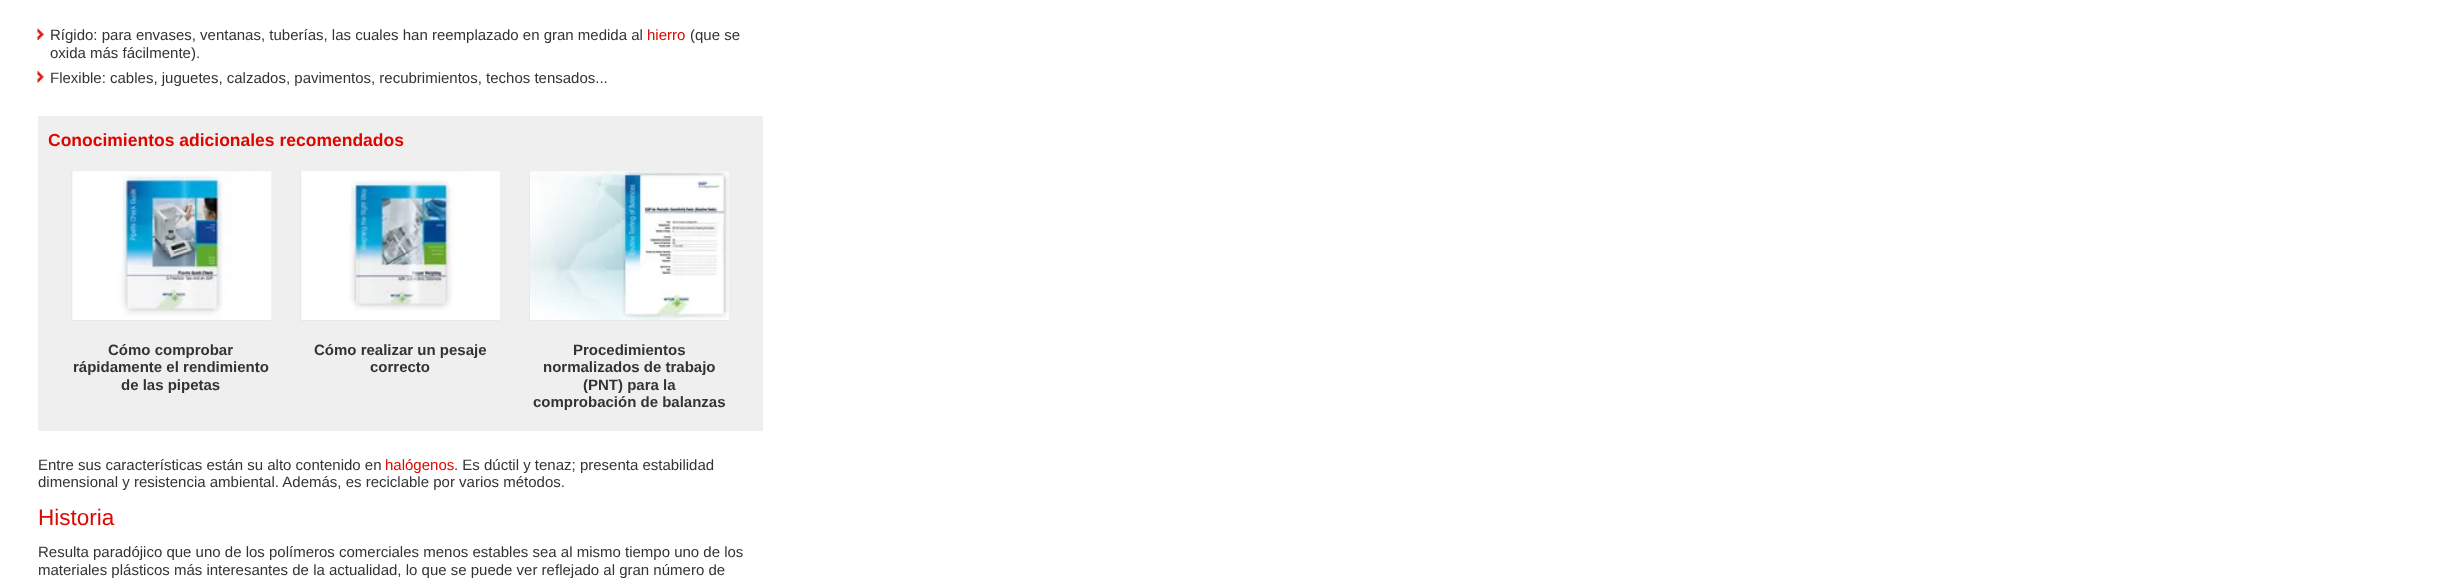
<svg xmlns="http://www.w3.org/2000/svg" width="2438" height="587">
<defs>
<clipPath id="clip1"><rect x="71" y="171" width="200" height="150"/></clipPath>
<clipPath id="clip2"><rect x="300" y="171" width="200" height="150"/></clipPath>
<clipPath id="clip3"><rect x="529" y="171" width="200" height="150"/></clipPath>
</defs>
<rect width="100%" height="100%" fill="#fff"/>
<image x="37" y="28" width="7" height="12" href="media/1.png"/>
<text x="50" y="40" style="font-family:Liberation Sans;font-size:15px;fill:#333">Rígido: para envases, ventanas, tuberías, las cuales han reemplazado en gran medida al</text>
<text x="647" y="40" style="font-family:Liberation Sans;font-size:15px;fill:#dd0700">hierro</text>
<text x="690" y="40" style="font-family:Liberation Sans;font-size:15px;fill:#333">(que se</text>
<text x="50" y="58" style="font-family:Liberation Sans;font-size:15px;fill:#333">oxida más fácilmente).</text>
<image x="37" y="71" width="7" height="12" href="media/2.png"/>
<text x="50" y="83" style="font-family:Liberation Sans;font-size:15px;fill:#333">Flexible: cables, juguetes, calzados, pavimentos, recubrimientos, techos tensados...</text>
<rect x="38" y="116" width="725" height="315" fill="#efefef"/>
<text x="48" y="146" style="font-family:Liberation Sans;font-size:17.5px;font-weight:bold;fill:#dd0700">Conocimientos adicionales recomendados</text>
<g clip-path="url(#clip1)">
<rect x="71.5" y="169.5" width="202" height="151" fill="none" stroke="#e8e8e8"/>
</g>
<image x="72" y="171" width="200" height="149" href="media/3.png"/>
<text x="108" y="355" style="font-family:Liberation Sans;font-size:15px;font-weight:bold;fill:#333">Cómo comprobar</text>
<text x="73" y="372" style="font-family:Liberation Sans;font-size:15px;font-weight:bold;fill:#333">rápidamente el rendimiento</text>
<text x="121" y="390" style="font-family:Liberation Sans;font-size:15px;font-weight:bold;fill:#333">de las pipetas</text>
<g clip-path="url(#clip2)">
<rect x="300.5" y="169.5" width="202" height="151" fill="none" stroke="#e8e8e8"/>
</g>
<image x="301" y="171" width="199" height="149" href="media/4.png"/>
<text x="314" y="355" style="font-family:Liberation Sans;font-size:15px;font-weight:bold;fill:#333">Cómo realizar un pesaje</text>
<text x="370" y="372" style="font-family:Liberation Sans;font-size:15px;font-weight:bold;fill:#333">correcto</text>
<g clip-path="url(#clip3)">
<rect x="529.5" y="169.5" width="201" height="151" fill="none" stroke="#e8e8e8"/>
</g>
<image x="530" y="171" width="199" height="149" href="media/5.png"/>
<text x="573" y="355" style="font-family:Liberation Sans;font-size:15px;font-weight:bold;fill:#333">Procedimientos</text>
<text x="543" y="372" style="font-family:Liberation Sans;font-size:15px;font-weight:bold;fill:#333">normalizados de trabajo</text>
<text x="583" y="390" style="font-family:Liberation Sans;font-size:15px;font-weight:bold;fill:#333">(PNT) para la</text>
<text x="533" y="407" style="font-family:Liberation Sans;font-size:15px;font-weight:bold;fill:#333">comprobación de balanzas</text>
<text x="38" y="470" style="font-family:Liberation Sans;font-size:15px;fill:#333">Entre sus características están su alto contenido en</text>
<text x="385" y="470" style="font-family:Liberation Sans;font-size:15px;fill:#dd0700">halógenos</text>
<text x="454" y="470" style="font-family:Liberation Sans;font-size:15px;fill:#333">. Es dúctil y tenaz; presenta estabilidad</text>
<text x="38" y="487" style="font-family:Liberation Sans;font-size:15px;fill:#333">dimensional y resistencia ambiental. Además, es reciclable por varios métodos.</text>
<text x="38" y="525" style="font-family:Liberation Sans;font-size:22.5px;fill:#dd0700">Historia</text>
<text x="38" y="557" style="font-family:Liberation Sans;font-size:15px;fill:#333">Resulta paradójico que uno de los polímeros comerciales menos estables sea al mismo tiempo uno de los</text>
<text x="38" y="575" style="font-family:Liberation Sans;font-size:15px;fill:#333">materiales plásticos más interesantes de la actualidad, lo que se puede ver reflejado al gran número de</text>
</svg>
